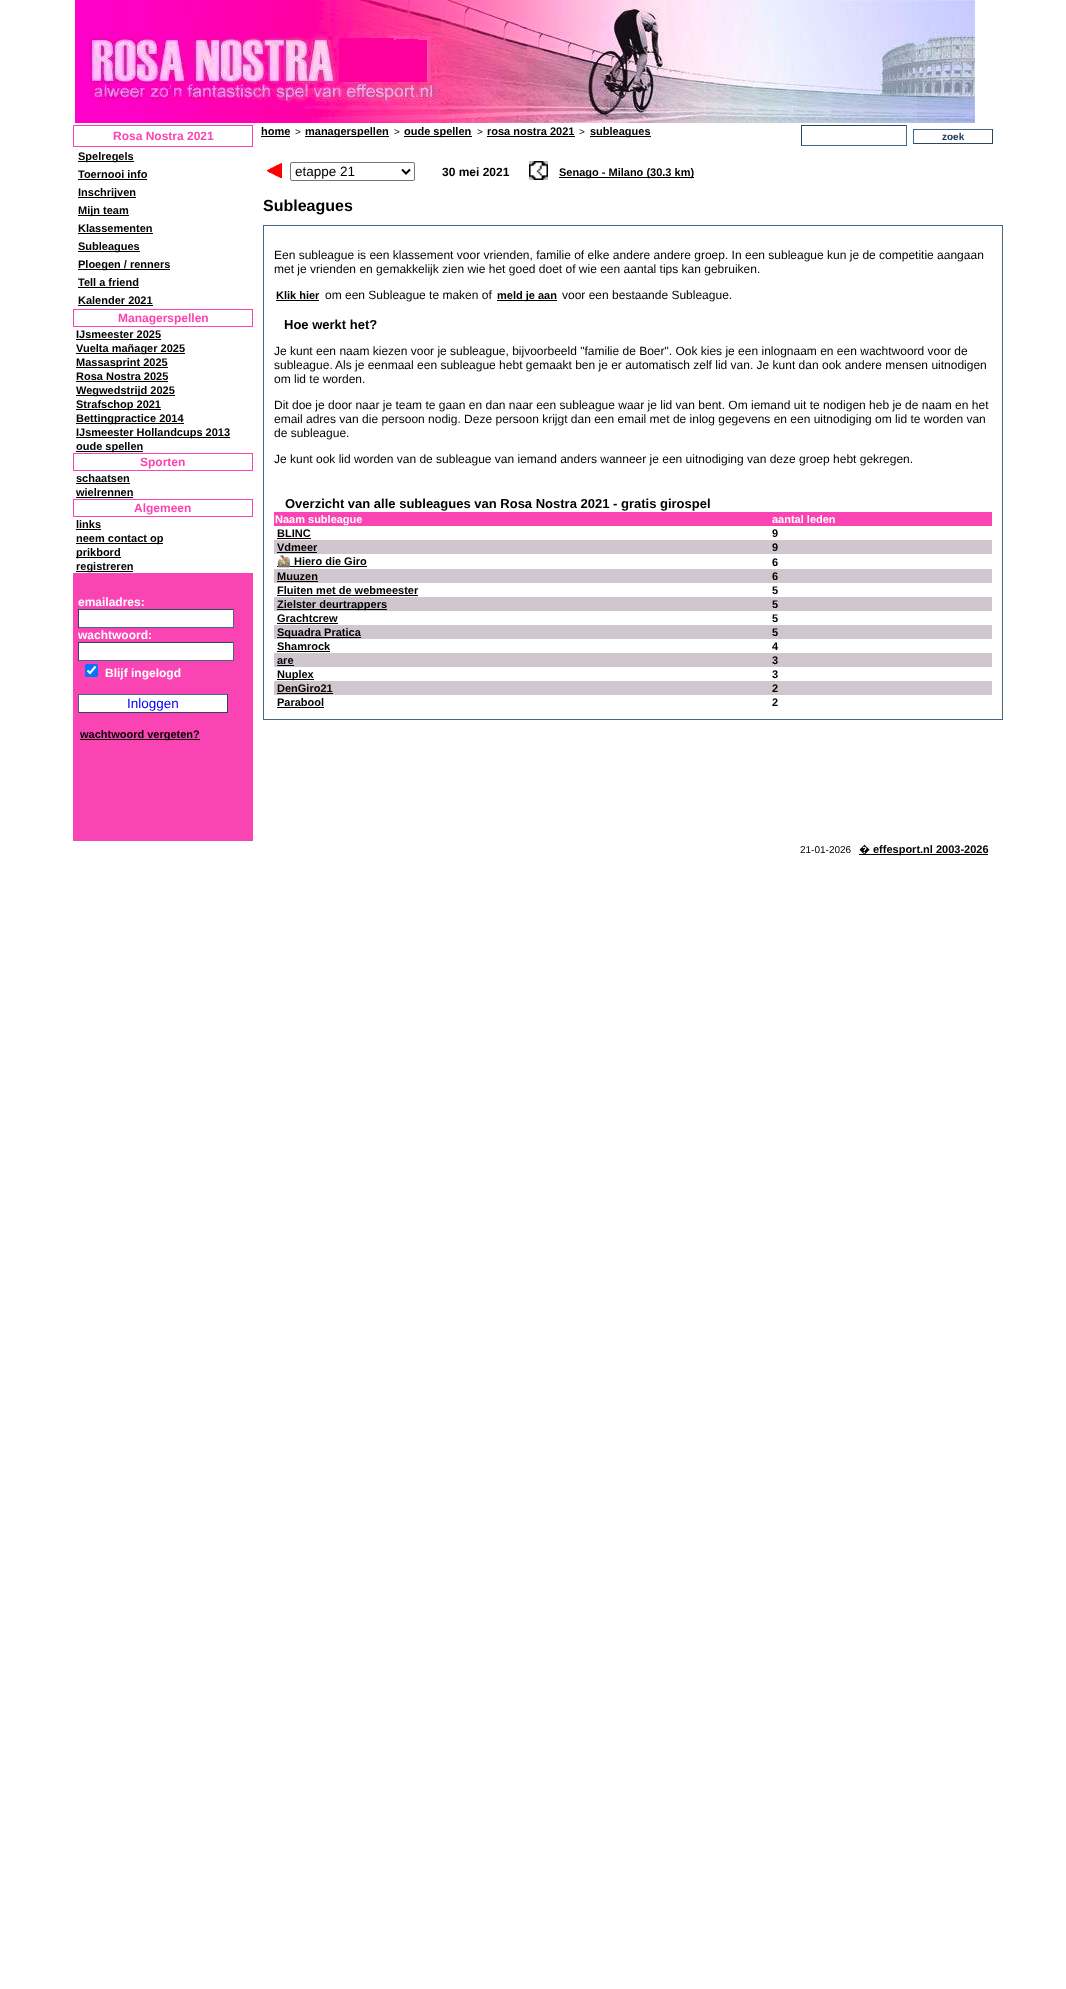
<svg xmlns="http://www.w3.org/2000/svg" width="1066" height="1989">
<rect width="100%" height="100%" fill="#fff"/>
<image x="75" y="0" width="900" height="123" href="media/1.png"/>
<rect x="73" y="573" width="180" height="268" fill="#fa44b3"/>
<rect x="73.5" y="125.5" width="179" height="21" fill="none" stroke="#fa44b3"/>
<text x="113" y="140" style="font-family:Liberation Sans;font-size:12px;font-weight:bold;fill:#fa44b3">Rosa Nostra 2021</text>
<rect x="78" y="161" width="56" height="1" fill="#000"/>
<text x="78" y="160" style="font-family:Liberation Sans;font-size:11px;font-weight:bold;fill:#000">Spelregels</text>
<text x="78" y="178" style="font-family:Liberation Sans;font-size:11px;font-weight:bold;fill:#000">Toernooi info</text>
<rect x="78" y="179" width="69" height="1" fill="#000"/>
<rect x="78" y="197" width="58" height="1" fill="#000"/>
<text x="78" y="196" style="font-family:Liberation Sans;font-size:11px;font-weight:bold;fill:#000">Inschrijven</text>
<rect x="78" y="215" width="51" height="1" fill="#000"/>
<text x="78" y="214" style="font-family:Liberation Sans;font-size:11px;font-weight:bold;fill:#000">Mijn team</text>
<text x="78" y="232" style="font-family:Liberation Sans;font-size:11px;font-weight:bold;fill:#000">Klassementen</text>
<rect x="78" y="233" width="75" height="1" fill="#000"/>
<rect x="78" y="251" width="62" height="1" fill="#000"/>
<text x="78" y="250" style="font-family:Liberation Sans;font-size:11px;font-weight:bold;fill:#000">Subleagues</text>
<rect x="78" y="269" width="92" height="1" fill="#000"/>
<text x="78" y="268" style="font-family:Liberation Sans;font-size:11px;font-weight:bold;fill:#000">Ploegen / renners</text>
<text x="78" y="286" style="font-family:Liberation Sans;font-size:11px;font-weight:bold;fill:#000">Tell a friend</text>
<rect x="78" y="287" width="61" height="1" fill="#000"/>
<text x="78" y="304" style="font-family:Liberation Sans;font-size:11px;font-weight:bold;fill:#000">Kalender 2021</text>
<rect x="78" y="305" width="75" height="1" fill="#000"/>
<rect x="73.5" y="309.5" width="179" height="17" fill="none" stroke="#fa44b3"/>
<text x="118" y="322" style="font-family:Liberation Sans;font-size:12px;font-weight:bold;fill:#fa44b3">Managerspellen</text>
<text x="76" y="338" style="font-family:Liberation Sans;font-size:11px;font-weight:bold;fill:#000">IJsmeester 2025</text>
<rect x="76" y="339" width="85" height="1" fill="#000"/>
<rect x="76" y="353" width="109" height="1" fill="#000"/>
<text x="76" y="352" style="font-family:Liberation Sans;font-size:11px;font-weight:bold;fill:#000">Vuelta mañager 2025</text>
<rect x="76" y="367" width="92" height="1" fill="#000"/>
<text x="76" y="366" style="font-family:Liberation Sans;font-size:11px;font-weight:bold;fill:#000">Massasprint 2025</text>
<text x="76" y="380" style="font-family:Liberation Sans;font-size:11px;font-weight:bold;fill:#000">Rosa Nostra 2025</text>
<rect x="76" y="381" width="92" height="1" fill="#000"/>
<rect x="76" y="395" width="99" height="1" fill="#000"/>
<text x="76" y="394" style="font-family:Liberation Sans;font-size:11px;font-weight:bold;fill:#000">Wegwedstrijd 2025</text>
<rect x="76" y="409" width="85" height="1" fill="#000"/>
<text x="76" y="408" style="font-family:Liberation Sans;font-size:11px;font-weight:bold;fill:#000">Strafschop 2021</text>
<rect x="76" y="423" width="108" height="1" fill="#000"/>
<text x="76" y="422" style="font-family:Liberation Sans;font-size:11px;font-weight:bold;fill:#000">Bettingpractice 2014</text>
<rect x="76" y="437" width="154" height="1" fill="#000"/>
<text x="76" y="436" style="font-family:Liberation Sans;font-size:11px;font-weight:bold;fill:#000">IJsmeester Hollandcups 2013</text>
<rect x="76" y="451" width="67" height="1" fill="#000"/>
<text x="76" y="450" style="font-family:Liberation Sans;font-size:11px;font-weight:bold;fill:#000">oude spellen</text>
<rect x="73.5" y="453.5" width="179" height="17" fill="none" stroke="#fa44b3"/>
<text x="140" y="466" style="font-family:Liberation Sans;font-size:12px;font-weight:bold;fill:#fa44b3">Sporten</text>
<text x="76" y="482" style="font-family:Liberation Sans;font-size:11px;font-weight:bold;fill:#000">schaatsen</text>
<rect x="76" y="483" width="54" height="1" fill="#000"/>
<text x="76" y="496" style="font-family:Liberation Sans;font-size:11px;font-weight:bold;fill:#000">wielrennen</text>
<rect x="76" y="497" width="57" height="1" fill="#000"/>
<rect x="73.5" y="499.5" width="179" height="17" fill="none" stroke="#fa44b3"/>
<text x="134" y="512" style="font-family:Liberation Sans;font-size:12px;font-weight:bold;fill:#fa44b3">Algemeen</text>
<text x="76" y="528" style="font-family:Liberation Sans;font-size:11px;font-weight:bold;fill:#000">links</text>
<rect x="76" y="529" width="25" height="1" fill="#000"/>
<rect x="76" y="543" width="87" height="1" fill="#000"/>
<text x="76" y="542" style="font-family:Liberation Sans;font-size:11px;font-weight:bold;fill:#000">neem contact op</text>
<rect x="76" y="557" width="45" height="1" fill="#000"/>
<text x="76" y="556" style="font-family:Liberation Sans;font-size:11px;font-weight:bold;fill:#000">prikbord</text>
<rect x="76" y="571" width="57" height="1" fill="#000"/>
<text x="76" y="570" style="font-family:Liberation Sans;font-size:11px;font-weight:bold;fill:#000">registreren</text>
<text x="78" y="606" style="font-family:Liberation Sans;font-size:12px;font-weight:bold;fill:#fff">emailadres:</text>
<rect x="79" y="610" width="154" height="17" fill="#fff"/>
<rect x="78" y="609" width="156" height="1" fill="#2e455b"/>
<rect x="233" y="609" width="1" height="19" fill="#456789"/>
<rect x="78" y="627" width="156" height="1" fill="#456789"/>
<rect x="78" y="609" width="1" height="19" fill="#2e455b"/>
<text x="78" y="639" style="font-family:Liberation Sans;font-size:12px;font-weight:bold;fill:#fff">wachtwoord:</text>
<rect x="79" y="643" width="154" height="17" fill="#fff"/>
<rect x="78" y="642" width="156" height="1" fill="#2e455b"/>
<rect x="233" y="642" width="1" height="19" fill="#456789"/>
<rect x="78" y="660" width="156" height="1" fill="#456789"/>
<rect x="78" y="642" width="1" height="19" fill="#2e455b"/>
<rect x="85" y="664" width="13" height="13" rx="2" fill="#0075ff"/>
<path d="M87.5 670.5l2.5 2.5l5.5-6.5" fill="none" stroke="#fff" stroke-width="2.1"/>
<text x="105" y="677" style="font-family:Liberation Sans;font-size:12px;font-weight:bold;fill:#fff">Blijf ingelogd</text>
<rect x="79" y="695" width="148" height="17" fill="#fff"/>
<rect x="78" y="694" width="150" height="1" fill="#456789"/>
<rect x="227" y="694" width="1" height="19" fill="#2e455b"/>
<rect x="78" y="712" width="150" height="1" fill="#2e455b"/>
<rect x="78" y="694" width="1" height="19" fill="#456789"/>
<text x="127" y="708" style="font-family:Liberation Sans;font-size:13.5px;fill:#00f">Inloggen</text>
<rect x="80" y="739" width="120" height="1" fill="#000"/>
<text x="80" y="738" style="font-family:Liberation Sans;font-size:11px;font-weight:bold;fill:#000">wachtwoord vergeten?</text>
<text x="261" y="135" style="font-family:Liberation Sans;font-size:11px;font-weight:bold;fill:#000">home</text>
<rect x="261" y="136" width="29" height="1" fill="#000"/>
<text x="295" y="135" style="font-family:Liberation Sans;font-size:10px;fill:#000">&gt;</text>
<rect x="305" y="136" width="84" height="1" fill="#000"/>
<text x="305" y="135" style="font-family:Liberation Sans;font-size:11px;font-weight:bold;fill:#000">managerspellen</text>
<text x="394" y="135" style="font-family:Liberation Sans;font-size:10px;fill:#000">&gt;</text>
<rect x="404" y="136" width="68" height="1" fill="#000"/>
<text x="404" y="135" style="font-family:Liberation Sans;font-size:11px;font-weight:bold;fill:#000">oude spellen</text>
<text x="477" y="135" style="font-family:Liberation Sans;font-size:10px;fill:#000">&gt;</text>
<text x="487" y="135" style="font-family:Liberation Sans;font-size:11px;font-weight:bold;fill:#000">rosa nostra 2021</text>
<rect x="487" y="136" width="88" height="1" fill="#000"/>
<text x="579" y="135" style="font-family:Liberation Sans;font-size:10px;fill:#000">&gt;</text>
<rect x="590" y="136" width="61" height="1" fill="#000"/>
<text x="590" y="135" style="font-family:Liberation Sans;font-size:11px;font-weight:bold;fill:#000">subleagues</text>
<rect x="801" y="125" width="106" height="1" fill="#2e455b"/>
<rect x="906" y="125" width="1" height="21" fill="#456789"/>
<rect x="801" y="145" width="106" height="1" fill="#456789"/>
<rect x="801" y="125" width="1" height="21" fill="#2e455b"/>
<rect x="913" y="129" width="80" height="1" fill="#456789"/>
<rect x="992" y="129" width="1" height="15" fill="#2e455b"/>
<rect x="913" y="143" width="80" height="1" fill="#2e455b"/>
<rect x="913" y="129" width="1" height="15" fill="#456789"/>
<text x="942" y="140" style="font-family:Liberation Sans;font-size:10px;font-weight:bold;fill:#123456">zoek</text>
<image x="267" y="163" width="15" height="15" href="media/2.png"/>
<rect x="290.5" y="162.5" width="124" height="18" rx="1.5" fill="none" stroke="#767676"/>
<path d="M402 169.5l4 4l4-4" fill="none" stroke="#000" stroke-width="2"/>
<text x="295" y="176" style="font-family:Liberation Sans;font-size:13.5px;fill:#000">etappe 21</text>
<text x="442" y="176" style="font-family:Liberation Sans;font-size:12px;font-weight:bold;fill:#000">30 mei 2021</text>
<image x="529" y="161" width="19" height="19" href="media/3.png"/>
<rect x="559" y="177" width="135" height="1" fill="#000"/>
<text x="559" y="176" style="font-family:Liberation Sans;font-size:11px;font-weight:bold;fill:#000">Senago - Milano (30.3 km)</text>
<text x="263" y="211" style="font-family:Liberation Sans;font-size:16px;font-weight:bold;fill:#000">Subleagues</text>
<rect x="263.5" y="225.5" width="739" height="494" fill="none" stroke="#456789"/>
<text x="274" y="259" style="font-family:Liberation Sans;font-size:12px;fill:#000">Een subleague is een klassement voor vrienden, familie of elke andere andere groep. In een subleague kun je de competitie aangaan</text>
<text x="274" y="273" style="font-family:Liberation Sans;font-size:12px;fill:#000">met je vrienden en gemakkelijk zien wie het goed doet of wie een aantal tips kan gebruiken.</text>
<text x="276" y="299" style="font-family:Liberation Sans;font-size:11px;font-weight:bold;fill:#000">Klik hier</text>
<rect x="276" y="300" width="43" height="1" fill="#000"/>
<text x="325" y="299" style="font-family:Liberation Sans;font-size:12px;fill:#000">om een Subleague te maken of</text>
<rect x="497" y="300" width="60" height="1" fill="#000"/>
<text x="497" y="299" style="font-family:Liberation Sans;font-size:11px;font-weight:bold;fill:#000">meld je aan</text>
<text x="562" y="299" style="font-family:Liberation Sans;font-size:12px;fill:#000">voor een bestaande Subleague.</text>
<text x="284" y="329" style="font-family:Liberation Sans;font-size:13px;font-weight:bold;fill:#000">Hoe werkt het?</text>
<text x="274" y="355" style="font-family:Liberation Sans;font-size:12px;fill:#000">Je kunt een naam kiezen voor je subleague, bijvoorbeeld "familie de Boer". Ook kies je een inlognaam en een wachtwoord voor de</text>
<text x="274" y="369" style="font-family:Liberation Sans;font-size:12px;fill:#000">subleague.</text>
<text x="335" y="369" style="font-family:Liberation Sans;font-size:12px;fill:#000">Als je eenmaal een subleague hebt gemaakt ben je er automatisch zelf lid van. Je kunt dan ook andere mensen uitnodigen</text>
<text x="274" y="383" style="font-family:Liberation Sans;font-size:12px;fill:#000">om lid te worden.</text>
<text x="274" y="409" style="font-family:Liberation Sans;font-size:12px;fill:#000">Dit doe je door naar je team te gaan en dan naar een subleague waar je lid van bent. Om iemand uit te nodigen heb je de naam en het</text>
<text x="274" y="423" style="font-family:Liberation Sans;font-size:12px;fill:#000">email adres van die persoon nodig. Deze persoon krijgt dan een email met de inlog gegevens en een uitnodiging om lid te worden van</text>
<text x="274" y="437" style="font-family:Liberation Sans;font-size:12px;fill:#000">de subleague.</text>
<text x="274" y="463" style="font-family:Liberation Sans;font-size:12px;fill:#000">Je kunt ook lid worden van de subleague van iemand anders wanneer je een uitnodiging van deze groep hebt gekregen.</text>
<text x="285" y="508" style="font-family:Liberation Sans;font-size:13px;font-weight:bold;fill:#000">Overzicht van alle subleagues van Rosa Nostra 2021 - gratis girospel</text>
<rect x="274" y="512" width="718" height="14" fill="#fa44b3"/>
<text x="275" y="523" style="font-family:Liberation Sans;font-size:11px;font-weight:bold;fill:#fff">Naam subleague</text>
<text x="772" y="523" style="font-family:Liberation Sans;font-size:11px;font-weight:bold;fill:#fff">aantal leden</text>
<text x="277" y="537" style="font-family:Liberation Sans;font-size:11px;font-weight:bold;fill:#000">BLINC</text>
<rect x="277" y="538" width="34" height="1" fill="#000"/>
<text x="772" y="537" style="font-family:Liberation Sans;font-size:11px;font-weight:bold;fill:#000">9</text>
<rect x="274" y="540" width="718" height="14" fill="#d0c6ce"/>
<text x="277" y="551" style="font-family:Liberation Sans;font-size:11px;font-weight:bold;fill:#000">Vdmeer</text>
<rect x="277" y="552" width="40" height="1" fill="#000"/>
<text x="772" y="551" style="font-family:Liberation Sans;font-size:11px;font-weight:bold;fill:#000">9</text>
<rect x="277" y="566" width="90" height="1" fill="#000"/>
<text x="277" y="565" style="font-family:Noto Color Emoji;font-size:11px;font-weight:bold;fill:#000">🚵🏻</text>
<text x="294" y="565" style="font-family:Liberation Sans;font-size:11px;font-weight:bold;fill:#000">Hiero die Giro</text>
<text x="772" y="566" style="font-family:Liberation Sans;font-size:11px;font-weight:bold;fill:#000">6</text>
<rect x="274" y="569" width="718" height="14" fill="#d0c6ce"/>
<text x="277" y="580" style="font-family:Liberation Sans;font-size:11px;font-weight:bold;fill:#000">Muuzen</text>
<rect x="277" y="581" width="41" height="1" fill="#000"/>
<text x="772" y="580" style="font-family:Liberation Sans;font-size:11px;font-weight:bold;fill:#000">6</text>
<text x="277" y="594" style="font-family:Liberation Sans;font-size:11px;font-weight:bold;fill:#000">Fluiten met de webmeester</text>
<rect x="277" y="595" width="141" height="1" fill="#000"/>
<text x="772" y="594" style="font-family:Liberation Sans;font-size:11px;font-weight:bold;fill:#000">5</text>
<rect x="274" y="597" width="718" height="14" fill="#d0c6ce"/>
<rect x="277" y="609" width="110" height="1" fill="#000"/>
<text x="277" y="608" style="font-family:Liberation Sans;font-size:11px;font-weight:bold;fill:#000">Zielster deurtrappers</text>
<text x="772" y="608" style="font-family:Liberation Sans;font-size:11px;font-weight:bold;fill:#000">5</text>
<text x="277" y="622" style="font-family:Liberation Sans;font-size:11px;font-weight:bold;fill:#000">Grachtcrew</text>
<rect x="277" y="623" width="61" height="1" fill="#000"/>
<text x="772" y="622" style="font-family:Liberation Sans;font-size:11px;font-weight:bold;fill:#000">5</text>
<rect x="274" y="625" width="718" height="14" fill="#d0c6ce"/>
<rect x="277" y="637" width="84" height="1" fill="#000"/>
<text x="277" y="636" style="font-family:Liberation Sans;font-size:11px;font-weight:bold;fill:#000">Squadra Pratica</text>
<text x="772" y="636" style="font-family:Liberation Sans;font-size:11px;font-weight:bold;fill:#000">5</text>
<text x="277" y="650" style="font-family:Liberation Sans;font-size:11px;font-weight:bold;fill:#000">Shamrock</text>
<rect x="277" y="651" width="53" height="1" fill="#000"/>
<text x="772" y="650" style="font-family:Liberation Sans;font-size:11px;font-weight:bold;fill:#000">4</text>
<rect x="274" y="653" width="718" height="14" fill="#d0c6ce"/>
<text x="277" y="664" style="font-family:Liberation Sans;font-size:11px;font-weight:bold;fill:#000">are</text>
<rect x="277" y="665" width="17" height="1" fill="#000"/>
<text x="772" y="664" style="font-family:Liberation Sans;font-size:11px;font-weight:bold;fill:#000">3</text>
<rect x="277" y="679" width="37" height="1" fill="#000"/>
<text x="277" y="678" style="font-family:Liberation Sans;font-size:11px;font-weight:bold;fill:#000">Nuplex</text>
<text x="772" y="678" style="font-family:Liberation Sans;font-size:11px;font-weight:bold;fill:#000">3</text>
<rect x="274" y="681" width="718" height="14" fill="#d0c6ce"/>
<text x="277" y="692" style="font-family:Liberation Sans;font-size:11px;font-weight:bold;fill:#000">DenGiro21</text>
<rect x="277" y="693" width="56" height="1" fill="#000"/>
<text x="772" y="692" style="font-family:Liberation Sans;font-size:11px;font-weight:bold;fill:#000">2</text>
<text x="277" y="706" style="font-family:Liberation Sans;font-size:11px;font-weight:bold;fill:#000">Parabool</text>
<rect x="277" y="707" width="47" height="1" fill="#000"/>
<text x="772" y="706" style="font-family:Liberation Sans;font-size:11px;font-weight:bold;fill:#000">2</text>
<text x="800" y="853" style="font-family:Liberation Sans;font-size:10px;fill:#000">21-01-2026</text>
<rect x="859" y="854" width="129" height="1" fill="#000"/>
<text x="859" y="853" style="font-family:Noto Sans;font-size:11px;font-weight:bold;fill:#000">�</text>
<text x="873" y="853" style="font-family:Liberation Sans;font-size:11px;font-weight:bold;fill:#000">effesport.nl 2003-2026</text>
</svg>
